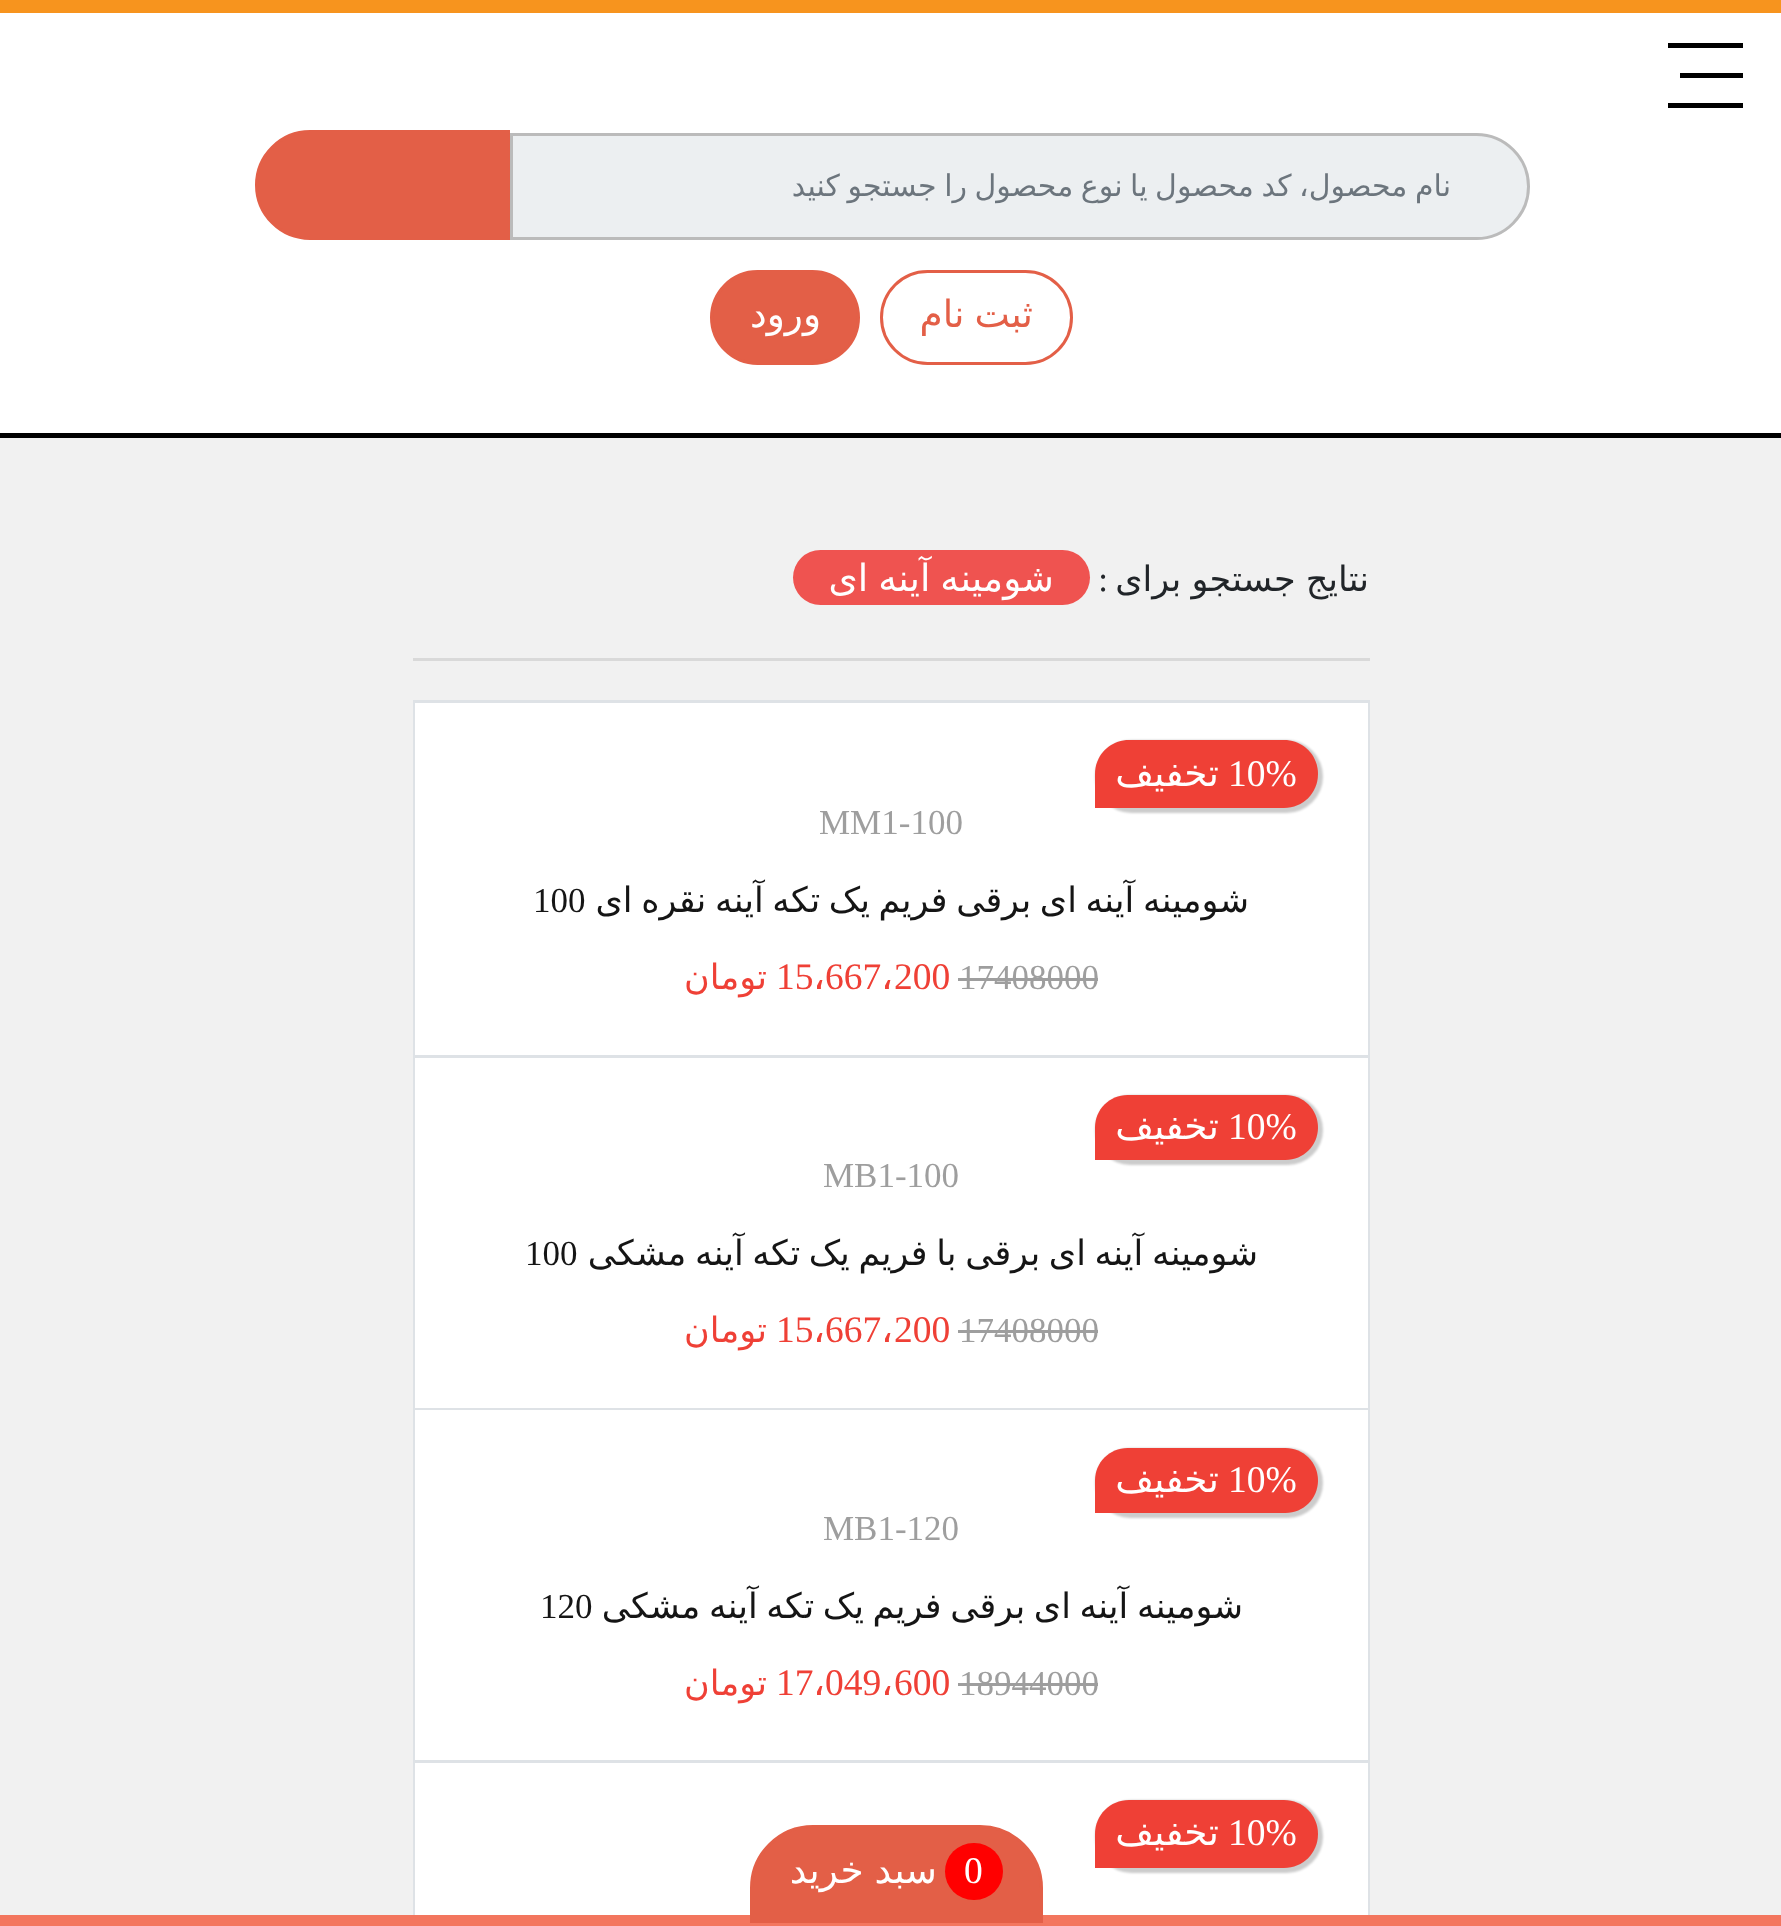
<svg xmlns="http://www.w3.org/2000/svg" width="1781" height="1926">
<rect width="100%" height="100%" fill="#f1f1f1"/>
<rect y="13" width="1781" height="420" fill="#fff"/>
<rect x="1668" y="43" width="75" height="5" fill="#000"/>
<rect x="1680" y="73" width="63" height="5" fill="#000"/>
<rect x="1668" y="103" width="75" height="5" fill="#000"/>
<rect width="1781" height="13" fill="#f7941e"/>
<path d="M511.5 134.5h965c28.5 0 52 23.5 52 52c0 28.5-23.5 52-52 52h-965z" fill="#eceff1" stroke="#bbb" stroke-width="3"/>
<text x="1451" y="196" word-spacing="-2" style="font-family:DejaVu Sans;font-size:30px;direction:rtl;fill:#6c757d">نام محصول، کد محصول یا نوع محصول را جستجو کنید</text>
<path d="M310 131.5h198.5v107h-198.5c-29.5 0-53.5-24-53.5-53.5c0-29.5 24-53.5 53.5-53.5z" fill="#e35f47" stroke="#e35f47" stroke-width="3"/>
<rect x="881.5" y="271.5" width="190" height="92" rx="46" fill="none" stroke="#e35f47" stroke-width="3"/>
<text x="1033" y="327" word-spacing="-2" style="font-family:DejaVu Sans;font-size:37.5px;direction:rtl;fill:#e35f47">ثبت نام</text>
<rect x="711.5" y="271.5" width="147" height="92" rx="46" fill="#e35f47" stroke="#e35f47" stroke-width="3"/>
<text x="821" y="327" style="font-family:DejaVu Sans;font-size:37.5px;direction:rtl;fill:#fff">ورود</text>
<rect x="414.5" y="701.5" width="954" height="355" fill="none" stroke="#dee2e6" stroke-width="3"/>
<rect x="414.5" y="1056.5" width="954" height="352" fill="none" stroke="#dee2e6" stroke-width="3"/>
<rect x="414.5" y="1409.5" width="954" height="352" fill="none" stroke="#dee2e6" stroke-width="3"/>
<rect x="414.5" y="1761.5" width="954" height="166" fill="none" stroke="#dee2e6" stroke-width="3"/>
<rect y="1915" width="1781" height="11" fill="#f3765e"/>
<rect x="415" y="1763" width="953" height="152" fill="#fff"/>
<path d="M813 1826.5h167c34 0 61.5 27.5 61.5 61.5v33.5h-290v-33.5c0-34 27.5-61.5 61.5-61.5z" fill="#e35f47" stroke="#e35f47" stroke-width="3"/>
<rect x="945" y="1843" width="58" height="57" rx="28.5" fill="#f00"/>
<text x="964" y="1883" style="font-family:Liberation Serif;font-size:37.5px;fill:#fff">0</text>
<text x="937" y="1883" word-spacing="-1" style="font-family:DejaVu Sans;font-size:37.5px;direction:rtl;fill:#fff">سبد خرید</text>
<rect y="433" width="1781" height="5" fill="#000"/>
<text x="1369" y="591" word-spacing="-1" style="font-family:DejaVu Sans;font-size:35px;direction:rtl;fill:#212529">نتایج جستجو برای</text>
<text x="1108" y="591" style="font-family:Liberation Serif;font-size:35px;direction:rtl;fill:#212529">:</text>
<rect x="793" y="550" width="297" height="55" rx="27.5" fill="#ef5350"/>
<text x="1054" y="591" word-spacing="-2" style="font-family:DejaVu Sans;font-size:37.5px;direction:rtl;fill:#fff">شومینه آینه ای</text>
<rect x="413" y="658" width="957" height="3" fill="#d9d9d9"/>
<rect x="415" y="703" width="953" height="352" fill="#fff"/>
<rect x="1095" y="740" width="228" height="73" rx="36.5" fill="#00000033" filter="blur(1px)"/>
<path d="M1129 740h155c19 0 34 15 34 34c0 19-15 34-34 34h-189v-34c0-19 15-34 34-34z" fill="#ef4036"/>
<text x="1228" y="786" style="font-family:Liberation Serif;font-size:37.5px;fill:#fff">10%</text>
<text x="1219" y="786" style="font-family:DejaVu Sans;font-size:37.5px;direction:rtl;fill:#fff">تخفیف</text>
<text x="819" y="834" style="font-family:Liberation Serif;font-size:35px;fill:#9e9e9e">MM1-100</text>
<text x="1249" y="912" word-spacing="-2.5" style="font-family:DejaVu Sans;font-size:35px;direction:rtl;fill:#151515">شومینه آینه ای برقی فریم یک تکه آینه نقره ای</text>
<text x="533" y="912" style="font-family:Liberation Serif;font-size:35px;fill:#151515">100</text>
<text x="959" y="989" style="font-family:Liberation Serif;font-size:35px;fill:#9e9e9e">17408000</text>
<rect x="958" y="978" width="140" height="3" fill="#9e9e9e"/>
<text x="894" y="989" style="font-family:Liberation Serif;font-size:37.5px;fill:#ef4036">200</text>
<text x="881" y="989" style="font-family:DejaVu Sans;font-size:37.5px;fill:#ef4036">،</text>
<text x="825" y="989" style="font-family:Liberation Serif;font-size:37.5px;fill:#ef4036">667</text>
<text x="813" y="989" style="font-family:DejaVu Sans;font-size:37.5px;fill:#ef4036">،</text>
<text x="776" y="989" style="font-family:Liberation Serif;font-size:37.5px;fill:#ef4036">15</text>
<text x="767" y="989" style="font-family:DejaVu Sans;font-size:35px;direction:rtl;fill:#ef4036">تومان</text>
<rect x="415" y="1058" width="953" height="350" fill="#fff"/>
<rect x="1095" y="1095" width="228" height="70" rx="35" fill="#00000033" filter="blur(1px)"/>
<path d="M1127.5 1095h158c18 0 32.5 14.5 32.5 32.5c0 18-14.5 32.5-32.5 32.5h-190.5v-32.5c0-18 14.5-32.5 32.5-32.5z" fill="#ef4036"/>
<text x="1228" y="1139" style="font-family:Liberation Serif;font-size:37.5px;fill:#fff">10%</text>
<text x="1219" y="1139" style="font-family:DejaVu Sans;font-size:37.5px;direction:rtl;fill:#fff">تخفیف</text>
<text x="823" y="1187" style="font-family:Liberation Serif;font-size:35px;fill:#9e9e9e">MB1-100</text>
<text x="1258" y="1265" word-spacing="-2.5" style="font-family:DejaVu Sans;font-size:35px;direction:rtl;fill:#151515">شومینه آینه ای برقی با فریم یک تکه آینه مشکی</text>
<text x="525" y="1265" style="font-family:Liberation Serif;font-size:35px;fill:#151515">100</text>
<text x="959" y="1342" style="font-family:Liberation Serif;font-size:35px;fill:#9e9e9e">17408000</text>
<rect x="958" y="1330" width="140" height="3" fill="#9e9e9e"/>
<text x="894" y="1342" style="font-family:Liberation Serif;font-size:37.5px;fill:#ef4036">200</text>
<text x="881" y="1342" style="font-family:DejaVu Sans;font-size:37.5px;fill:#ef4036">،</text>
<text x="825" y="1342" style="font-family:Liberation Serif;font-size:37.5px;fill:#ef4036">667</text>
<text x="813" y="1342" style="font-family:DejaVu Sans;font-size:37.5px;fill:#ef4036">،</text>
<text x="776" y="1342" style="font-family:Liberation Serif;font-size:37.5px;fill:#ef4036">15</text>
<text x="767" y="1342" style="font-family:DejaVu Sans;font-size:35px;direction:rtl;fill:#ef4036">تومان</text>
<rect x="415" y="1410" width="953" height="350" fill="#fff"/>
<rect x="1095" y="1448" width="228" height="70" rx="35" fill="#00000033" filter="blur(1px)"/>
<path d="M1127.5 1448h158c18 0 32.5 14.5 32.5 32.5c0 18-14.5 32.5-32.5 32.5h-190.5v-32.5c0-18 14.5-32.5 32.5-32.5z" fill="#ef4036"/>
<text x="1228" y="1492" style="font-family:Liberation Serif;font-size:37.5px;fill:#fff">10%</text>
<text x="1219" y="1492" style="font-family:DejaVu Sans;font-size:37.5px;direction:rtl;fill:#fff">تخفیف</text>
<text x="823" y="1540" style="font-family:Liberation Serif;font-size:35px;fill:#9e9e9e">MB1-120</text>
<text x="1243" y="1618" word-spacing="-2.5" style="font-family:DejaVu Sans;font-size:35px;direction:rtl;fill:#151515">شومینه آینه ای برقی فریم یک تکه آینه مشکی</text>
<text x="540" y="1618" style="font-family:Liberation Serif;font-size:35px;fill:#151515">120</text>
<text x="959" y="1695" style="font-family:Liberation Serif;font-size:35px;fill:#9e9e9e">18944000</text>
<rect x="958" y="1683" width="140" height="3" fill="#9e9e9e"/>
<text x="894" y="1695" style="font-family:Liberation Serif;font-size:37.5px;fill:#ef4036">600</text>
<text x="881" y="1695" style="font-family:DejaVu Sans;font-size:37.5px;fill:#ef4036">،</text>
<text x="825" y="1695" style="font-family:Liberation Serif;font-size:37.5px;fill:#ef4036">049</text>
<text x="813" y="1695" style="font-family:DejaVu Sans;font-size:37.5px;fill:#ef4036">،</text>
<text x="776" y="1695" style="font-family:Liberation Serif;font-size:37.5px;fill:#ef4036">17</text>
<text x="767" y="1695" style="font-family:DejaVu Sans;font-size:35px;direction:rtl;fill:#ef4036">تومان</text>
<rect x="1095" y="1800" width="228" height="73" rx="36.5" fill="#00000033" filter="blur(1px)"/>
<path d="M1129 1800h155c19 0 34 15 34 34c0 19-15 34-34 34h-189v-34c0-19 15-34 34-34z" fill="#ef4036"/>
<text x="1228" y="1845" style="font-family:Liberation Serif;font-size:37.5px;fill:#fff">10%</text>
<text x="1219" y="1845" style="font-family:DejaVu Sans;font-size:37.5px;direction:rtl;fill:#fff">تخفیف</text>
</svg>
